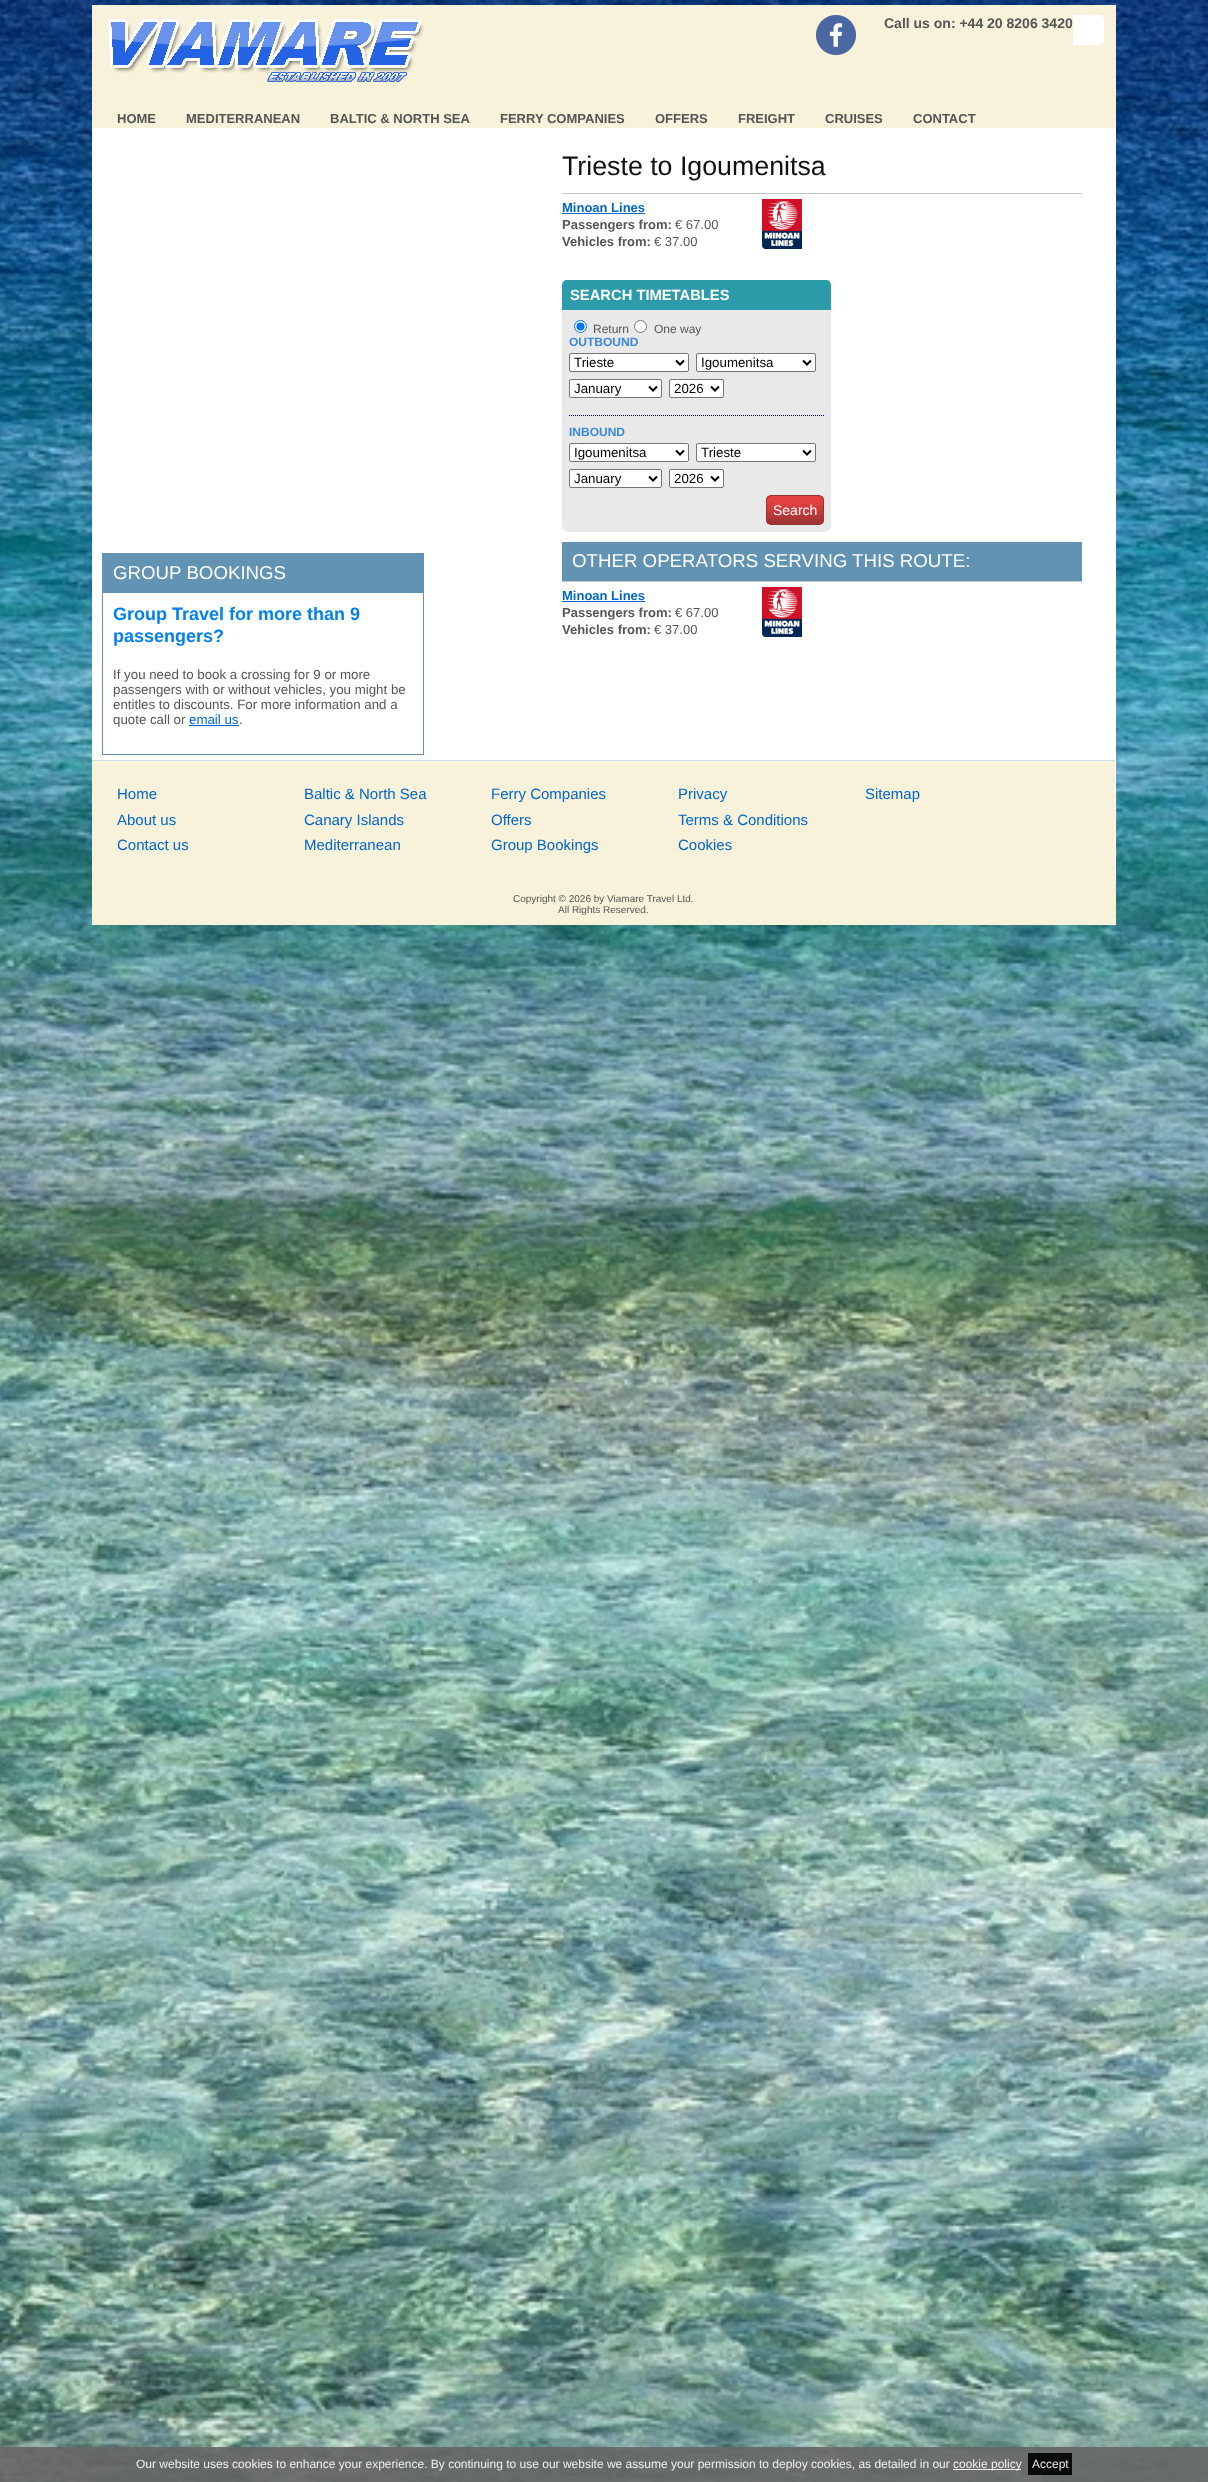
<svg xmlns="http://www.w3.org/2000/svg" width="1208" height="2482">
<defs>
<clipPath id="clip1"><rect x="766" y="495" width="58" height="30" rx="5"/></clipPath>
<linearGradient id="g1" gradientUnits="userSpaceOnUse" x1="795" y1="496" x2="795" y2="524"><stop offset="0.25" stop-color="#e34040"/><stop offset="1" stop-color="#933"/></linearGradient>
</defs>
<rect width="100%" height="100%" fill="#fff"/>
<image x="0" y="0" width="1208" height="2482" href="media/1.png"/>
<rect x="92" y="128" width="1024" height="750" fill="#fff"/>
<rect x="92" y="5" width="1024" height="123" fill="#f8f2da"/>
<image x="108" y="19" width="316" height="63" href="media/2.png"/>
<image x="816" y="15" width="40" height="40" href="media/3.png"/>
<rect x="884" y="15" width="220" height="30" rx="5" fill="#fff"/>
<rect x="884" y="15" width="189" height="30" fill="#f8f2da"/>
<text x="884" y="28" style="font-family:Liberation Sans;font-size:14px;font-weight:bold;fill:#555">Call us on: +44 20 8206 3420</text>
<text x="117" y="123" style="font-family:Liberation Sans;font-size:13px;font-weight:bold;fill:#555">HOME</text>
<text x="186" y="123" style="font-family:Liberation Sans;font-size:13px;font-weight:bold;fill:#555">MEDITERRANEAN</text>
<text x="330" y="123" style="font-family:Liberation Sans;font-size:13px;font-weight:bold;fill:#555">BALTIC &amp; NORTH SEA</text>
<text x="500" y="123" style="font-family:Liberation Sans;font-size:13px;font-weight:bold;fill:#555">FERRY COMPANIES</text>
<text x="655" y="123" style="font-family:Liberation Sans;font-size:13px;font-weight:bold;fill:#555">OFFERS</text>
<text x="738" y="123" style="font-family:Liberation Sans;font-size:13px;font-weight:bold;fill:#555">FREIGHT</text>
<text x="825" y="123" style="font-family:Liberation Sans;font-size:13px;font-weight:bold;fill:#555">CRUISES</text>
<text x="913" y="123" style="font-family:Liberation Sans;font-size:13px;font-weight:bold;fill:#555">CONTACT</text>
<rect x="102.5" y="553.5" width="321" height="201" fill="none" stroke="#6293b3"/>
<rect x="103" y="554" width="320" height="39" fill="#6293b3"/>
<text x="113" y="579" style="font-family:Liberation Sans;font-size:18.7px;fill:#fff">GROUP BOOKINGS</text>
<text x="113" y="620" style="font-family:Liberation Sans;font-size:18px;font-weight:bold;fill:#0181ed">Group Travel for more than 9</text>
<text x="113" y="642" style="font-family:Liberation Sans;font-size:18px;font-weight:bold;fill:#0181ed">passengers?</text>
<text x="113" y="679" style="font-family:Liberation Sans;font-size:13.3px;fill:#555">If you need to book a crossing for 9 or more</text>
<text x="113" y="694" style="font-family:Liberation Sans;font-size:13.3px;fill:#555">passengers with or without vehicles, you might be</text>
<text x="113" y="709" style="font-family:Liberation Sans;font-size:13.3px;fill:#555">entitles to discounts. For more information and a</text>
<text x="113" y="724" style="font-family:Liberation Sans;font-size:13.3px;fill:#555">quote call or</text>
<text x="189" y="724" style="font-family:Liberation Sans;font-size:13.3px;fill:#06c">email us</text>
<rect x="189" y="725" width="50" height="1" fill="#06c"/>
<text x="239" y="724" style="font-family:Liberation Sans;font-size:13.3px;fill:#555">.</text>
<text x="562" y="175" style="font-family:Liberation Sans;font-size:26.75px;fill:#111">Trieste to Igoumenitsa</text>
<rect x="562" y="193" width="520" height="1" fill="#c6c6c6"/>
<text x="562" y="212" style="font-family:Liberation Sans;font-size:13px;font-weight:bold;fill:#06c">Minoan Lines</text>
<rect x="562" y="213" width="83" height="1" fill="#06c"/>
<text x="562" y="229" style="font-family:Liberation Sans;font-size:13px;font-weight:bold;fill:#555">Passengers from:</text>
<text x="675" y="229" style="font-family:Liberation Sans;font-size:13px;fill:#555">€ 67.00</text>
<text x="562" y="246" style="font-family:Liberation Sans;font-size:13px;font-weight:bold;fill:#555">Vehicles from:</text>
<text x="654" y="246" style="font-family:Liberation Sans;font-size:13px;fill:#555">€ 37.00</text>
<image x="762" y="199" width="40" height="50" href="media/4.png"/>
<path d="M567 280h259c3 0 5 2 5 5v25h-269v-25c0-3 2-5 5-5z" fill="#2d9caa"/>
<text x="570" y="300" style="font-family:Liberation Sans;font-size:14.75px;font-weight:bold;fill:#fff">SEARCH TIMETABLES</text>
<path d="M562 310h269v215c0 4-3 7-7 7h-255c-4 0-7-3-7-7z" fill="#e9e9e9"/>
<circle cx="580.5" cy="326.5" r="6" fill="#fff" stroke="#0075ff"/>
<circle cx="580.5" cy="326.5" r="4" fill="#0075ff"/>
<text x="593" y="333" style="font-family:Liberation Sans;font-size:12px;fill:#555">Return</text>
<circle cx="640.5" cy="326.5" r="6" fill="#fff" stroke="#767676"/>
<text x="654" y="333" style="font-family:Liberation Sans;font-size:12px;fill:#555">One way</text>
<text x="569" y="346" style="font-family:Liberation Sans;font-size:12px;font-weight:bold;fill:#3c87de">OUTBOUND</text>
<rect x="569.5" y="353.5" width="119" height="18" rx="1.5" fill="#fff" stroke="#767676"/>
<path d="M676 360.5l4 4l4-4" fill="none" stroke="#000" stroke-width="2"/>
<text x="574" y="367" style="font-family:Liberation Sans;font-size:13.3px;fill:#000">Trieste</text>
<rect x="696.5" y="353.5" width="119" height="18" rx="1.5" fill="#fff" stroke="#767676"/>
<path d="M803 360.5l4 4l4-4" fill="none" stroke="#000" stroke-width="2"/>
<text x="701" y="367" style="font-family:Liberation Sans;font-size:13.3px;fill:#000">Igoumenitsa</text>
<rect x="569.5" y="379.5" width="92" height="18" rx="1.5" fill="#fff" stroke="#767676"/>
<path d="M649 386.5l4 4l4-4" fill="none" stroke="#000" stroke-width="2"/>
<text x="574" y="393" style="font-family:Liberation Sans;font-size:13.3px;fill:#000">January</text>
<rect x="669.5" y="379.5" width="54" height="18" rx="1.5" fill="#fff" stroke="#767676"/>
<path d="M711 386.5l4 4l4-4" fill="none" stroke="#000" stroke-width="2"/>
<text x="674" y="393" style="font-family:Liberation Sans;font-size:13.3px;fill:#000">2026</text>
<path d="M569 415.5h255" fill="none" stroke="#000080" stroke-dasharray="1 1"/>
<text x="569" y="436" style="font-family:Liberation Sans;font-size:12px;font-weight:bold;fill:#3c87de">INBOUND</text>
<rect x="569.5" y="443.5" width="119" height="18" rx="1.5" fill="#fff" stroke="#767676"/>
<path d="M676 450.5l4 4l4-4" fill="none" stroke="#000" stroke-width="2"/>
<text x="574" y="457" style="font-family:Liberation Sans;font-size:13.3px;fill:#000">Igoumenitsa</text>
<rect x="696.5" y="443.5" width="119" height="18" rx="1.5" fill="#fff" stroke="#767676"/>
<path d="M803 450.5l4 4l4-4" fill="none" stroke="#000" stroke-width="2"/>
<text x="701" y="457" style="font-family:Liberation Sans;font-size:13.3px;fill:#000">Trieste</text>
<rect x="569.5" y="469.5" width="92" height="18" rx="1.5" fill="#fff" stroke="#767676"/>
<path d="M649 476.5l4 4l4-4" fill="none" stroke="#000" stroke-width="2"/>
<text x="574" y="483" style="font-family:Liberation Sans;font-size:13.3px;fill:#000">January</text>
<rect x="669.5" y="469.5" width="54" height="18" rx="1.5" fill="#fff" stroke="#767676"/>
<path d="M711 476.5l4 4l4-4" fill="none" stroke="#000" stroke-width="2"/>
<text x="674" y="483" style="font-family:Liberation Sans;font-size:13.3px;fill:#000">2026</text>
<g clip-path="url(#clip1)">
<rect x="766" y="496" width="58" height="28" fill="url(#g1)"/>
</g>
<rect x="766.5" y="495.5" width="57" height="29" rx="4.5" fill="none" stroke="#933"/>
<text x="773" y="515" style="font-family:Liberation Sans;font-size:14px;fill:#fff">Search</text>
<rect x="562" y="542" width="520" height="39" fill="#6293b3"/>
<text x="572" y="567" style="font-family:Liberation Sans;font-size:18.7px;fill:#fff">OTHER OPERATORS SERVING THIS ROUTE:</text>
<rect x="562" y="581" width="520" height="1" fill="#c6c6c6"/>
<text x="562" y="600" style="font-family:Liberation Sans;font-size:13px;font-weight:bold;fill:#06c">Minoan Lines</text>
<rect x="562" y="601" width="83" height="1" fill="#06c"/>
<text x="562" y="617" style="font-family:Liberation Sans;font-size:13px;font-weight:bold;fill:#555">Passengers from:</text>
<text x="675" y="617" style="font-family:Liberation Sans;font-size:13px;fill:#555">€ 67.00</text>
<text x="562" y="634" style="font-family:Liberation Sans;font-size:13px;font-weight:bold;fill:#555">Vehicles from:</text>
<text x="654" y="634" style="font-family:Liberation Sans;font-size:13px;fill:#555">€ 37.00</text>
<image x="762" y="587" width="40" height="50" href="media/4.png"/>
<rect x="92" y="761" width="1023" height="117" fill="#f8f2da"/>
<rect x="92" y="760" width="1023" height="1" fill="#c9e0ed"/>
<text x="117" y="799" style="font-family:Liberation Sans;font-size:15px;fill:#06c">Home</text>
<text x="117" y="825" style="font-family:Liberation Sans;font-size:15px;fill:#06c">About us</text>
<text x="117" y="850" style="font-family:Liberation Sans;font-size:15px;fill:#06c">Contact us</text>
<text x="304" y="799" style="font-family:Liberation Sans;font-size:15px;fill:#06c">Baltic &amp; North Sea</text>
<text x="304" y="825" style="font-family:Liberation Sans;font-size:15px;fill:#06c">Canary Islands</text>
<text x="304" y="850" style="font-family:Liberation Sans;font-size:15px;fill:#06c">Mediterranean</text>
<text x="491" y="799" style="font-family:Liberation Sans;font-size:15px;fill:#06c">Ferry Companies</text>
<text x="491" y="825" style="font-family:Liberation Sans;font-size:15px;fill:#06c">Offers</text>
<text x="491" y="850" style="font-family:Liberation Sans;font-size:15px;fill:#06c">Group Bookings</text>
<text x="678" y="799" style="font-family:Liberation Sans;font-size:15px;fill:#06c">Privacy</text>
<text x="678" y="825" style="font-family:Liberation Sans;font-size:15px;fill:#06c">Terms &amp; Conditions</text>
<text x="678" y="850" style="font-family:Liberation Sans;font-size:15px;fill:#06c">Cookies</text>
<text x="865" y="799" style="font-family:Liberation Sans;font-size:15px;fill:#06c">Sitemap</text>
<rect x="92" y="878" width="1024" height="47" fill="#f8f2da"/>
<text x="513" y="902" style="font-family:Liberation Sans;font-size:10px;fill:#555">Copyright © 2026 by Viamare Travel Ltd.</text>
<text x="558" y="913" style="font-family:Liberation Sans;font-size:10px;fill:#555">All Rights Reserved.</text>
<rect y="2447" width="1208" height="35" fill="#666666e6"/>
<text x="136" y="2468" style="font-family:Liberation Sans;font-size:12px;fill:#f0f0f0">Our website uses cookies to enhance your experience. By continuing to use our website we assume your permission to deploy cookies, as detailed in our</text>
<rect x="953" y="2469" width="68" height="1" fill="#ffffffe6"/>
<text x="953" y="2468" style="font-family:Liberation Sans;font-size:12px;fill:#f0f0f0">cookie policy</text>
<rect x="1028" y="2453" width="44" height="22" fill="#000000e6"/>
<text x="1032" y="2468" style="font-family:Liberation Sans;font-size:12px;fill:#e7e7e7">Accept</text>
</svg>
